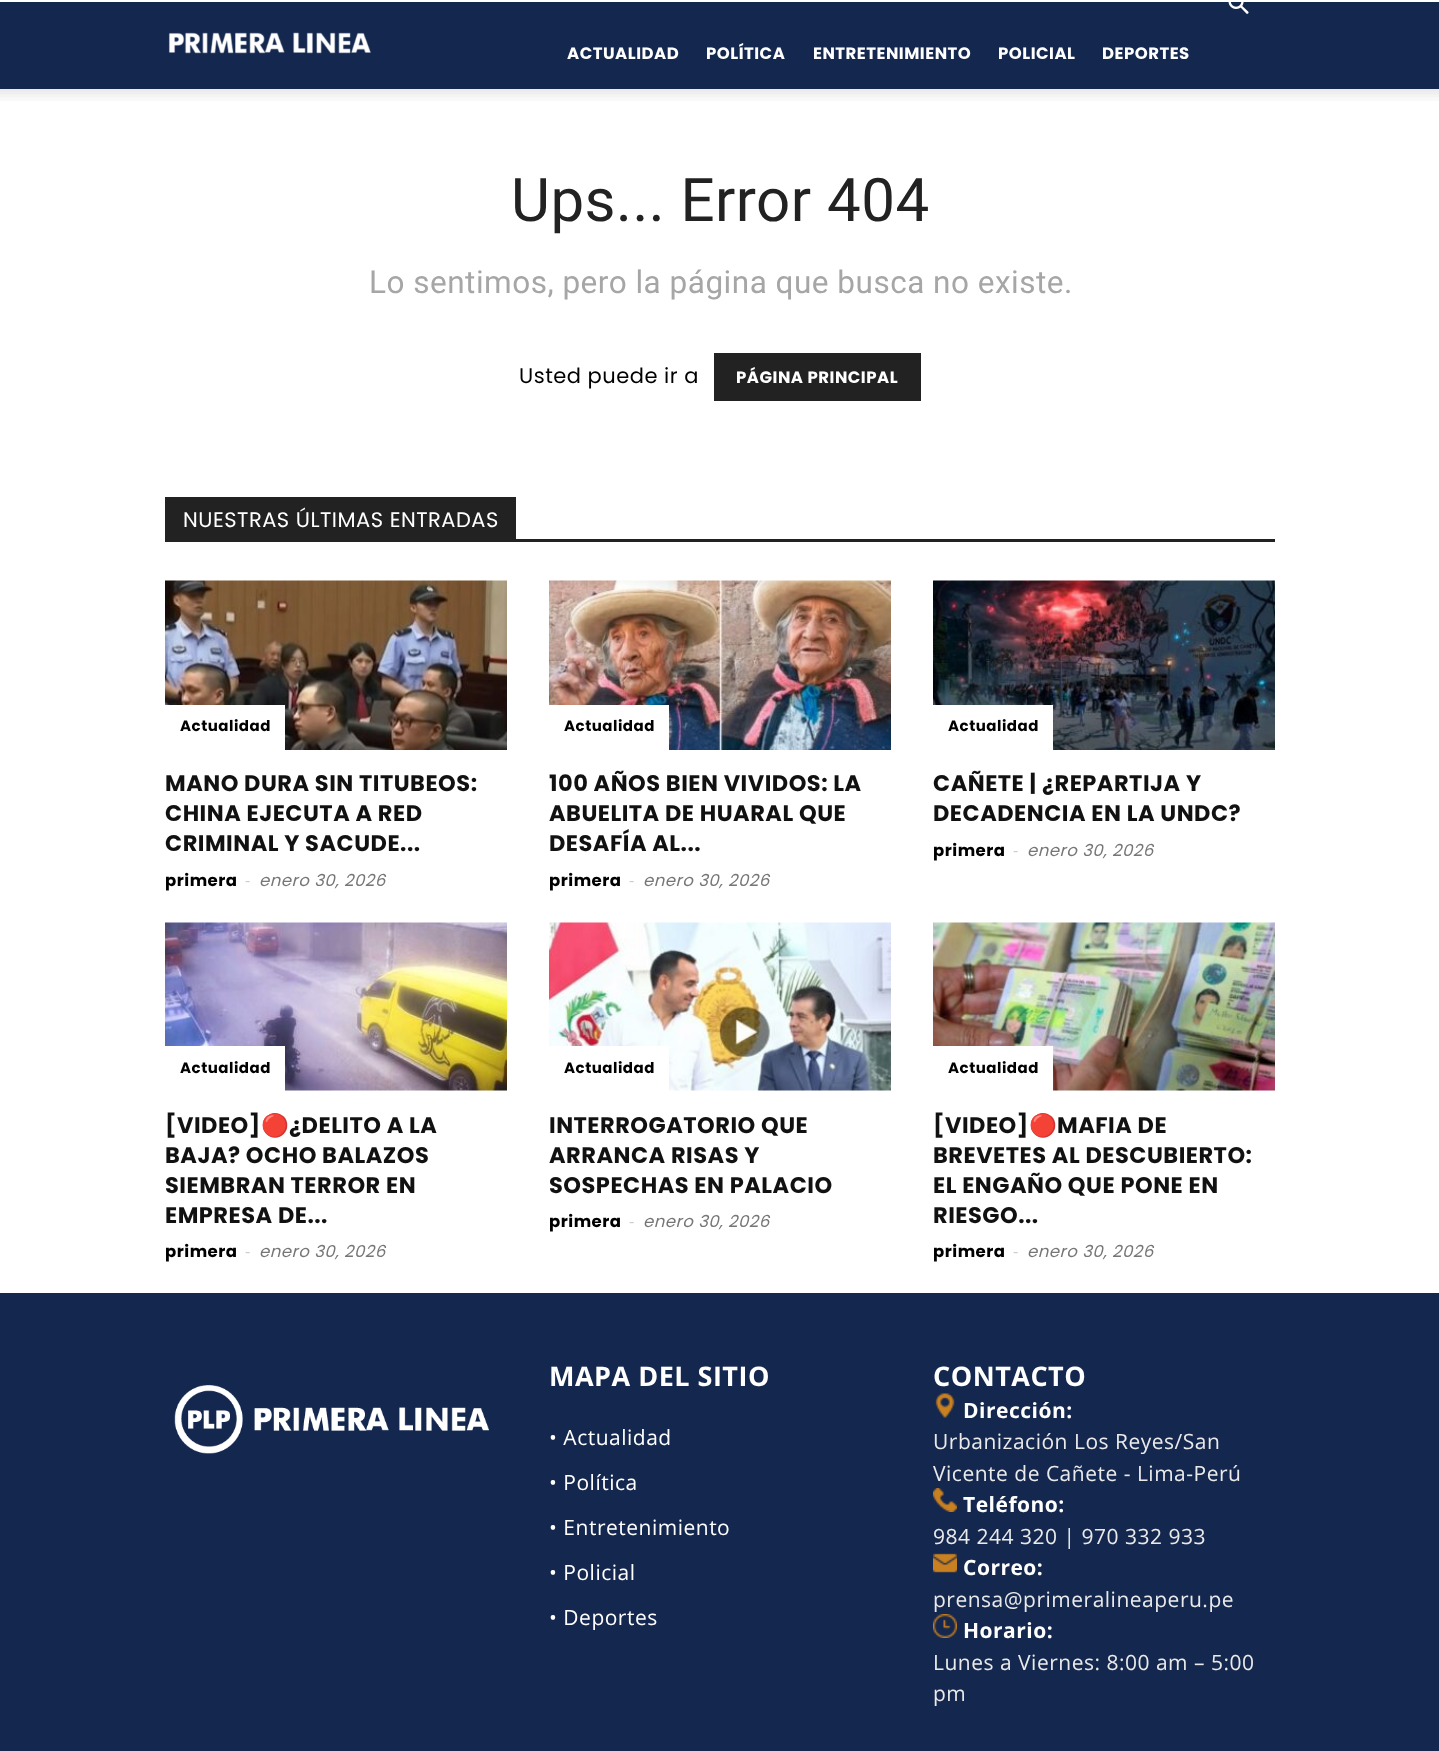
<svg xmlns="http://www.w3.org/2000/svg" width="1439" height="1751">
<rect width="100%" height="100%" fill="#fff"/>
<rect y="2" width="1439" height="87" fill="#14274e"/>
<image x="1228" y="2" width="21" height="12" href="media/1.png"/>
<image x="168" y="32" width="203" height="22" href="media/2.png"/>
<text x="567" y="59" style="font-family:Poppins;font-size:16.5px;font-weight:bold;letter-spacing:0.5px;fill:#fff">ACTUALIDAD</text>
<text x="706" y="59" style="font-family:Poppins;font-size:16.5px;font-weight:bold;letter-spacing:0.5px;fill:#fff">POLÍTICA</text>
<text x="813" y="59" style="font-family:Poppins;font-size:16.5px;font-weight:bold;letter-spacing:0.5px;fill:#fff">ENTRETENIMIENTO</text>
<text x="998" y="59" style="font-family:Poppins;font-size:16.5px;font-weight:bold;letter-spacing:0.5px;fill:#fff">POLICIAL</text>
<text x="1102" y="59" style="font-family:Poppins;font-size:16.5px;font-weight:bold;letter-spacing:0.5px;fill:#fff">DEPORTES</text>
<image x="0" y="89" width="1439" height="12" href="media/3.png"/>
<text x="511" y="221" style="font-family:Roboto;font-size:60px;letter-spacing:0.5px;fill:#222">Ups... Error 404</text>
<text x="369" y="293" style="font-family:Roboto;font-size:31.5px;letter-spacing:0.5px;fill:#a6a6a6">Lo sentimos, pero la página que busca no existe.</text>
<text x="519" y="383" style="font-family:Poppins;font-size:21px;letter-spacing:0.5px;fill:#000">Usted puede ir a</text>
<rect x="714" y="353" width="207" height="48" fill="#222"/>
<text x="736" y="383" style="font-family:Poppins;font-size:16.5px;font-weight:bold;letter-spacing:0.5px;fill:#fff">PÁGINA PRINCIPAL</text>
<rect x="165" y="539" width="1110" height="3" fill="#222"/>
<rect x="165" y="497" width="351" height="42" fill="#222"/>
<text x="183" y="527" style="font-family:Poppins;font-size:21px;letter-spacing:0.5px;fill:#fff">NUESTRAS ÚLTIMAS ENTRADAS</text>
<image x="165" y="580" width="342" height="170" href="media/4.png"/>
<rect x="165" y="705" width="120" height="45" fill="#fff"/>
<text x="180" y="731" style="font-family:Poppins;font-size:15px;font-weight:bold;letter-spacing:0.5px;fill:#000">Actualidad</text>
<text x="165" y="791" style="font-family:Poppins;font-size:22.5px;font-weight:bold;letter-spacing:0.5px;fill:#111">MANO DURA SIN TITUBEOS:</text>
<text x="165" y="821" style="font-family:Poppins;font-size:22.5px;font-weight:bold;letter-spacing:0.5px;fill:#111">CHINA EJECUTA A RED</text>
<text x="165" y="851" style="font-family:Poppins;font-size:22.5px;font-weight:bold;letter-spacing:0.5px;fill:#111">CRIMINAL Y SACUDE...</text>
<text x="165" y="886" style="font-family:Poppins;font-size:16.5px;font-weight:bold;letter-spacing:0.5px;fill:#000">primera</text>
<text x="245" y="886" style="font-family:Open Sans;font-size:16.5px;letter-spacing:0.5px;fill:#ccc">-</text>
<text x="259" y="886" style="font-family:Poppins;font-size:16.5px;font-style:italic;letter-spacing:0.5px;fill:#767676">enero 30, 2026</text>
<image x="549" y="580" width="342" height="170" href="media/5.png"/>
<rect x="549" y="705" width="120" height="45" fill="#fff"/>
<text x="564" y="731" style="font-family:Poppins;font-size:15px;font-weight:bold;letter-spacing:0.5px;fill:#000">Actualidad</text>
<text x="549" y="791" style="font-family:Poppins;font-size:22.5px;font-weight:bold;letter-spacing:0.5px;fill:#111">100 AÑOS BIEN VIVIDOS: LA</text>
<text x="549" y="821" style="font-family:Poppins;font-size:22.5px;font-weight:bold;letter-spacing:0.5px;fill:#111">ABUELITA DE HUARAL QUE</text>
<text x="549" y="851" style="font-family:Poppins;font-size:22.5px;font-weight:bold;letter-spacing:0.5px;fill:#111">DESAFÍA AL...</text>
<text x="549" y="886" style="font-family:Poppins;font-size:16.5px;font-weight:bold;letter-spacing:0.5px;fill:#000">primera</text>
<text x="629" y="886" style="font-family:Open Sans;font-size:16.5px;letter-spacing:0.5px;fill:#ccc">-</text>
<text x="643" y="886" style="font-family:Poppins;font-size:16.5px;font-style:italic;letter-spacing:0.5px;fill:#767676">enero 30, 2026</text>
<image x="933" y="580" width="342" height="170" href="media/6.png"/>
<rect x="933" y="705" width="120" height="45" fill="#fff"/>
<text x="948" y="731" style="font-family:Poppins;font-size:15px;font-weight:bold;letter-spacing:0.5px;fill:#000">Actualidad</text>
<text x="933" y="791" style="font-family:Poppins;font-size:22.5px;font-weight:bold;letter-spacing:0.5px;fill:#111">CAÑETE | ¿REPARTIJA Y</text>
<text x="933" y="821" style="font-family:Poppins;font-size:22.5px;font-weight:bold;letter-spacing:0.5px;fill:#111">DECADENCIA EN LA UNDC?</text>
<text x="933" y="856" style="font-family:Poppins;font-size:16.5px;font-weight:bold;letter-spacing:0.5px;fill:#000">primera</text>
<text x="1013" y="856" style="font-family:Open Sans;font-size:16.5px;letter-spacing:0.5px;fill:#ccc">-</text>
<text x="1027" y="856" style="font-family:Poppins;font-size:16.5px;font-style:italic;letter-spacing:0.5px;fill:#767676">enero 30, 2026</text>
<image x="165" y="922" width="342" height="169" href="media/7.png"/>
<rect x="165" y="1046" width="120" height="45" fill="#fff"/>
<text x="180" y="1073" style="font-family:Poppins;font-size:15px;font-weight:bold;letter-spacing:0.5px;fill:#000">Actualidad</text>
<text x="165" y="1133" style="font-family:Poppins;font-size:22.5px;font-weight:bold;letter-spacing:0.5px;fill:#111">[VIDEO]</text>
<text x="261" y="1133" style="font-family:Noto Color Emoji;font-size:22.5px;font-weight:bold;letter-spacing:0.5px;fill:#111">🔴</text>
<text x="289" y="1133" style="font-family:Poppins;font-size:22.5px;font-weight:bold;letter-spacing:0.5px;fill:#111">¿DELITO A LA</text>
<text x="165" y="1163" style="font-family:Poppins;font-size:22.5px;font-weight:bold;letter-spacing:0.5px;fill:#111">BAJA? OCHO BALAZOS</text>
<text x="165" y="1193" style="font-family:Poppins;font-size:22.5px;font-weight:bold;letter-spacing:0.5px;fill:#111">SIEMBRAN TERROR EN</text>
<text x="165" y="1223" style="font-family:Poppins;font-size:22.5px;font-weight:bold;letter-spacing:0.5px;fill:#111">EMPRESA DE...</text>
<text x="165" y="1257" style="font-family:Poppins;font-size:16.5px;font-weight:bold;letter-spacing:0.5px;fill:#000">primera</text>
<text x="245" y="1257" style="font-family:Open Sans;font-size:16.5px;letter-spacing:0.5px;fill:#ccc">-</text>
<text x="259" y="1257" style="font-family:Poppins;font-size:16.5px;font-style:italic;letter-spacing:0.5px;fill:#767676">enero 30, 2026</text>
<image x="549" y="922" width="342" height="169" href="media/8.png"/>
<rect x="549" y="1046" width="120" height="45" fill="#fff"/>
<text x="564" y="1073" style="font-family:Poppins;font-size:15px;font-weight:bold;letter-spacing:0.5px;fill:#000">Actualidad</text>
<text x="549" y="1133" style="font-family:Poppins;font-size:22.5px;font-weight:bold;letter-spacing:0.5px;fill:#111">INTERROGATORIO QUE</text>
<text x="549" y="1163" style="font-family:Poppins;font-size:22.5px;font-weight:bold;letter-spacing:0.5px;fill:#111">ARRANCA RISAS Y</text>
<text x="549" y="1193" style="font-family:Poppins;font-size:22.5px;font-weight:bold;letter-spacing:0.5px;fill:#111">SOSPECHAS EN PALACIO</text>
<text x="549" y="1227" style="font-family:Poppins;font-size:16.5px;font-weight:bold;letter-spacing:0.5px;fill:#000">primera</text>
<text x="629" y="1227" style="font-family:Open Sans;font-size:16.5px;letter-spacing:0.5px;fill:#ccc">-</text>
<text x="643" y="1227" style="font-family:Poppins;font-size:16.5px;font-style:italic;letter-spacing:0.5px;fill:#767676">enero 30, 2026</text>
<image x="933" y="922" width="342" height="169" href="media/9.png"/>
<rect x="933" y="1046" width="120" height="45" fill="#fff"/>
<text x="948" y="1073" style="font-family:Poppins;font-size:15px;font-weight:bold;letter-spacing:0.5px;fill:#000">Actualidad</text>
<text x="933" y="1133" style="font-family:Poppins;font-size:22.5px;font-weight:bold;letter-spacing:0.5px;fill:#111">[VIDEO]</text>
<text x="1029" y="1133" style="font-family:Noto Color Emoji;font-size:22.5px;font-weight:bold;letter-spacing:0.5px;fill:#111">🔴</text>
<text x="1057" y="1133" style="font-family:Poppins;font-size:22.5px;font-weight:bold;letter-spacing:0.5px;fill:#111">MAFIA DE</text>
<text x="933" y="1163" style="font-family:Poppins;font-size:22.5px;font-weight:bold;letter-spacing:0.5px;fill:#111">BREVETES AL DESCUBIERTO:</text>
<text x="933" y="1193" style="font-family:Poppins;font-size:22.5px;font-weight:bold;letter-spacing:0.5px;fill:#111">EL ENGAÑO QUE PONE EN</text>
<text x="933" y="1223" style="font-family:Poppins;font-size:22.5px;font-weight:bold;letter-spacing:0.5px;fill:#111">RIESGO...</text>
<text x="933" y="1257" style="font-family:Poppins;font-size:16.5px;font-weight:bold;letter-spacing:0.5px;fill:#000">primera</text>
<text x="1013" y="1257" style="font-family:Open Sans;font-size:16.5px;letter-spacing:0.5px;fill:#ccc">-</text>
<text x="1027" y="1257" style="font-family:Poppins;font-size:16.5px;font-style:italic;letter-spacing:0.5px;fill:#767676">enero 30, 2026</text>
<rect y="1293" width="1439" height="458" fill="#14274e"/>
<image x="174" y="1385" width="315" height="69" href="media/10.png"/>
<text x="549" y="1386" style="font-family:Open Sans;font-size:27px;font-weight:bold;letter-spacing:0.5px;fill:#fff">MAPA DEL SITIO</text>
<text x="549" y="1445" style="font-family:Open Sans;font-size:21px;letter-spacing:0.5px;fill:#fff">• Actualidad</text>
<text x="549" y="1490" style="font-family:Open Sans;font-size:21px;letter-spacing:0.5px;fill:#fff">• Política</text>
<text x="549" y="1535" style="font-family:Open Sans;font-size:21px;letter-spacing:0.5px;fill:#fff">• Entretenimiento</text>
<text x="549" y="1580" style="font-family:Open Sans;font-size:21px;letter-spacing:0.5px;fill:#fff">• Policial</text>
<text x="549" y="1625" style="font-family:Open Sans;font-size:21px;letter-spacing:0.5px;fill:#fff">• Deportes</text>
<text x="933" y="1386" style="font-family:Open Sans;font-size:27px;font-weight:bold;letter-spacing:0.5px;fill:#fff">CONTACTO</text>
<image x="935" y="1393" width="20" height="25" href="media/11.png"/>
<text x="963" y="1418" style="font-family:Open Sans;font-size:21px;font-weight:bold;letter-spacing:0.5px;fill:#fff">Dirección:</text>
<text x="933" y="1449" style="font-family:Open Sans;font-size:21px;letter-spacing:0.5px;fill:#eaeaea">Urbanización Los Reyes/San</text>
<text x="933" y="1481" style="font-family:Open Sans;font-size:21px;letter-spacing:0.5px;fill:#eaeaea">Vicente de Cañete - Lima-Perú</text>
<image x="933" y="1488" width="24" height="24" href="media/12.png"/>
<text x="963" y="1512" style="font-family:Open Sans;font-size:21px;font-weight:bold;letter-spacing:0.5px;fill:#fff">Teléfono:</text>
<text x="933" y="1544" style="font-family:Open Sans;font-size:21px;letter-spacing:0.5px;fill:#eaeaea">984 244 320 | 970 332 933</text>
<image x="933" y="1553" width="24" height="20" href="media/13.png"/>
<text x="963" y="1575" style="font-family:Open Sans;font-size:21px;font-weight:bold;letter-spacing:0.5px;fill:#fff">Correo:</text>
<text x="933" y="1607" style="font-family:Open Sans;font-size:21px;letter-spacing:0.5px;fill:#eaeaea">prensa@primeralineaperu.pe</text>
<image x="933" y="1614" width="24" height="24" href="media/14.png"/>
<text x="963" y="1638" style="font-family:Open Sans;font-size:21px;font-weight:bold;letter-spacing:0.5px;fill:#fff">Horario:</text>
<text x="933" y="1670" style="font-family:Open Sans;font-size:21px;letter-spacing:0.5px;fill:#eaeaea">Lunes a Viernes: 8:00 am – 5:00</text>
<text x="933" y="1701" style="font-family:Open Sans;font-size:21px;letter-spacing:0.5px;fill:#eaeaea">pm</text>
</svg>
